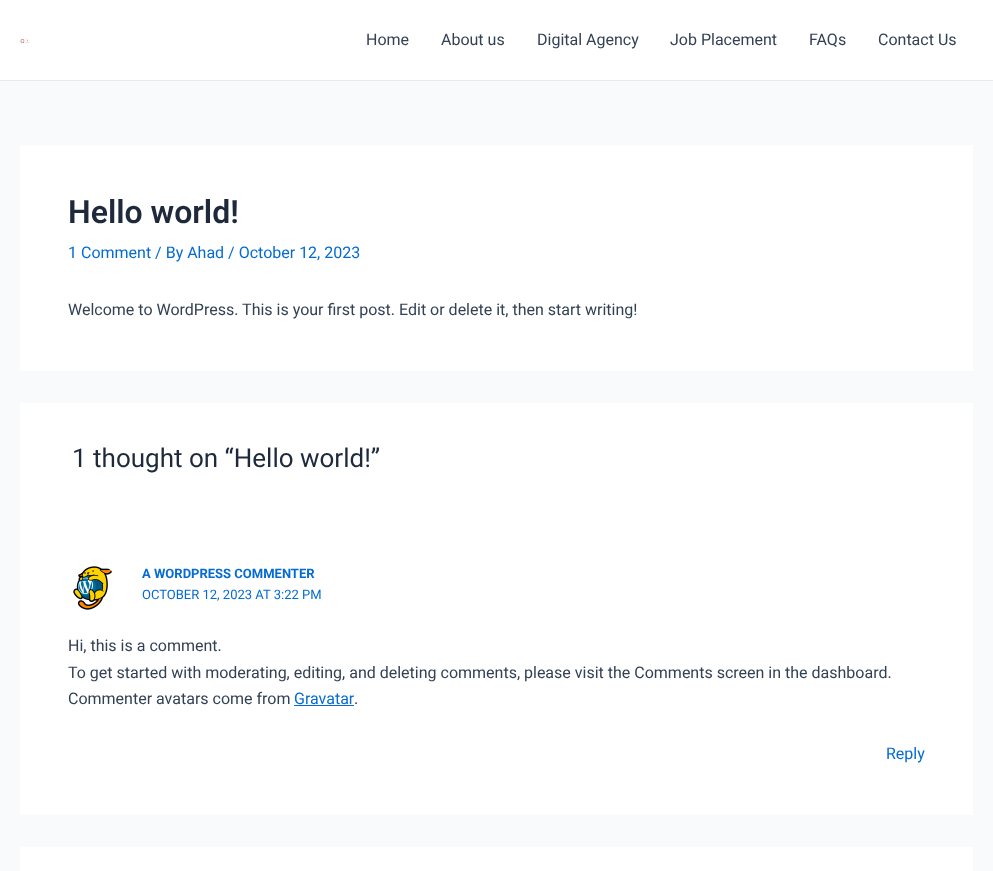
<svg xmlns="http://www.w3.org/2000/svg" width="993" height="871">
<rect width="100%" height="100%" fill="#f9fafb"/>
<rect width="993" height="80" fill="#fff"/>
<rect y="80" width="993" height="1" fill="#eaeaea"/>
<image x="20" y="39" width="10" height="5" href="media/1.png"/>
<text x="366" y="45" style="font-family:Roboto;font-size:16px;fill:#334155">Home</text>
<text x="441" y="45" style="font-family:Roboto;font-size:16px;fill:#334155">About us</text>
<text x="537" y="45" style="font-family:Roboto;font-size:16px;fill:#334155">Digital Agency</text>
<text x="670" y="45" style="font-family:Roboto;font-size:16px;fill:#334155">Job Placement</text>
<text x="809" y="45" style="font-family:Roboto;font-size:16px;fill:#334155">FAQs</text>
<text x="878" y="45" style="font-family:Roboto;font-size:16px;fill:#334155">Contact Us</text>
<rect x="20" y="145" width="953" height="226" fill="#fff"/>
<text x="68" y="223" style="font-family:Roboto;font-size:32px;font-weight:600;fill:#1e293b">Hello world!</text>
<text x="68" y="258" style="font-family:Roboto;font-size:16px;fill:#046bd2">1 Comment / By Ahad / October 12, 2023</text>
<text x="68" y="315" style="font-family:Roboto;font-size:16px;fill:#334155">Welcome to WordPress. This is your first post. Edit or delete it, then start writing!</text>
<rect x="20" y="403" width="953" height="412" fill="#fff"/>
<text x="72" y="467" style="font-family:Roboto;font-size:26px;fill:#1e293b">1 thought on “Hello world!”</text>
<image x="73" y="566" width="39" height="44" href="media/2.png"/>
<text x="142" y="578" style="font-family:Roboto;font-size:13px;font-weight:bold;fill:#046bd2">A WORDPRESS COMMENTER</text>
<text x="142" y="599" style="font-family:Roboto;font-size:13px;fill:#046bd2">OCTOBER 12, 2023 AT 3:22 PM</text>
<text x="68" y="651" style="font-family:Roboto;font-size:16px;fill:#334155">Hi, this is a comment.</text>
<text x="68" y="678" style="font-family:Roboto;font-size:16px;fill:#334155">To get started with moderating, editing, and deleting comments, please visit the Comments screen in the dashboard.</text>
<text x="68" y="704" style="font-family:Roboto;font-size:16px;fill:#334155">Commenter avatars come from</text>
<text x="294" y="704" style="font-family:Roboto;font-size:16px;fill:#046bd2">Gravatar</text>
<rect x="294" y="705" width="60" height="1" fill="#046bd2"/>
<text x="354" y="704" style="font-family:Roboto;font-size:16px;fill:#334155">.</text>
<text x="886" y="759" style="font-family:Roboto;font-size:16px;fill:#046bd2">Reply</text>
<rect x="20" y="847" width="953" height="24" fill="#fff"/>
</svg>
